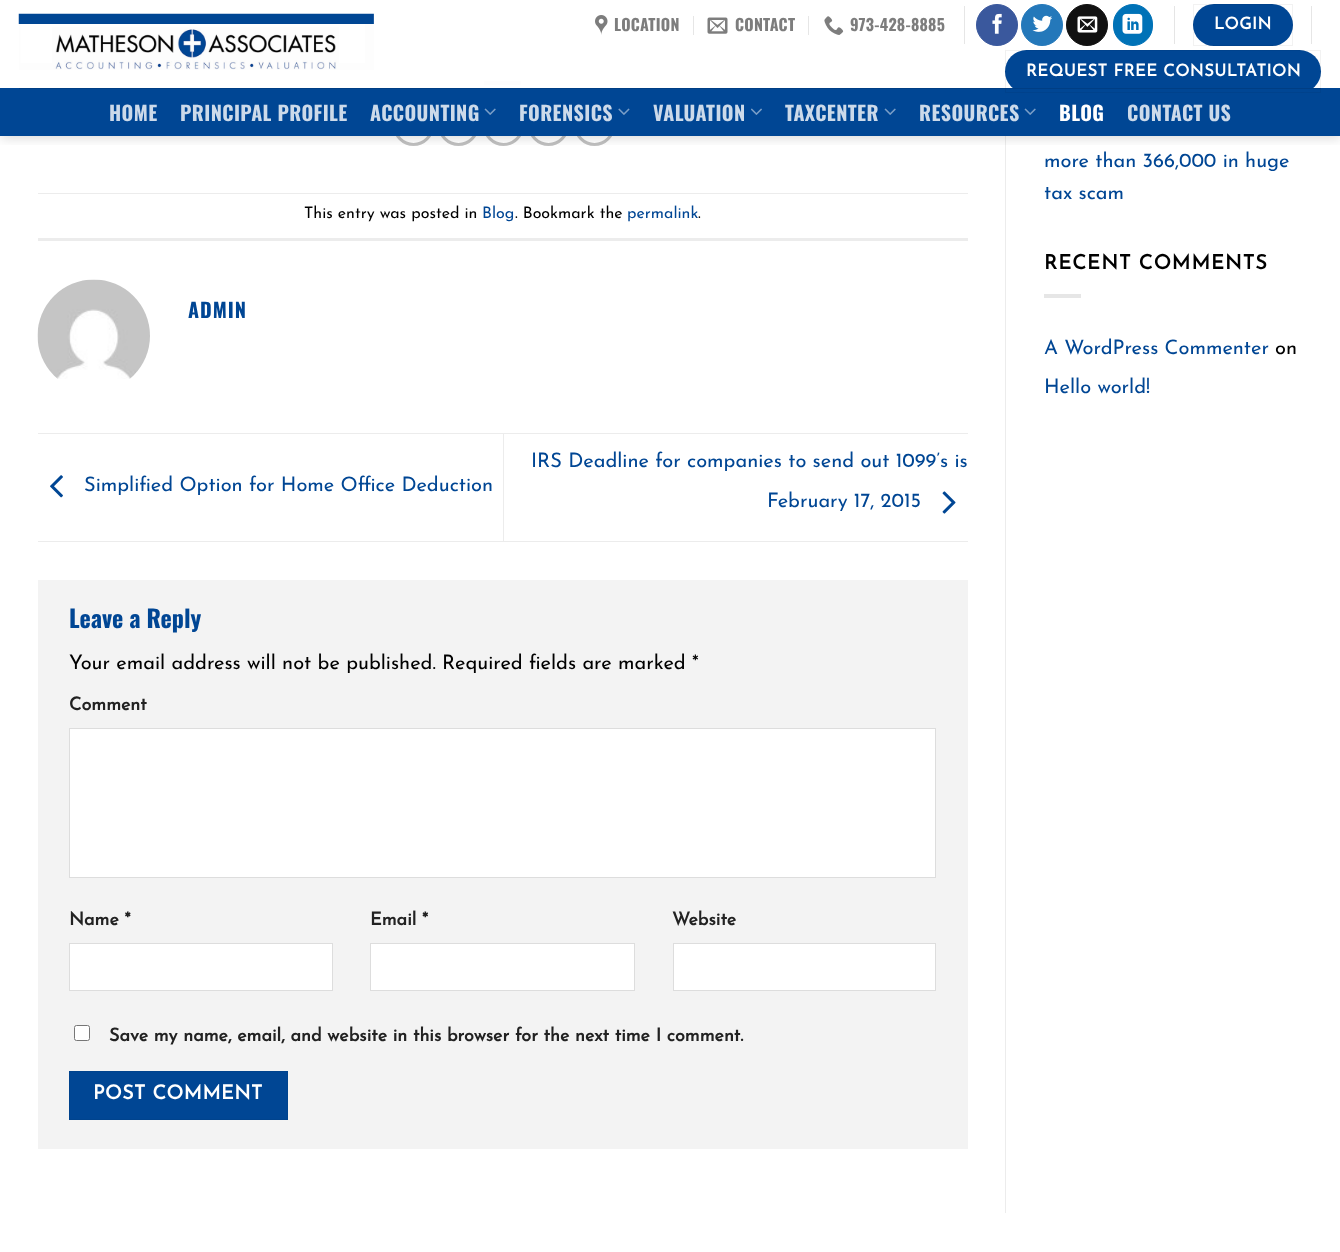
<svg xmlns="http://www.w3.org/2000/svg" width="1340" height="1252">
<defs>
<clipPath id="clip1"><rect x="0" y="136" width="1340" height="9"/></clipPath>
</defs>
<rect width="100%" height="100%" fill="#fff"/>
<rect x="484" y="81" width="37" height="4" fill="#e6e6e6"/>
<circle cx="413.5" cy="125.5" r="19" fill="none" stroke="#c0c0c0" stroke-width="3"/>
<circle cx="458.5" cy="125.5" r="19" fill="none" stroke="#c0c0c0" stroke-width="3"/>
<circle cx="503.5" cy="125.5" r="19" fill="none" stroke="#c0c0c0" stroke-width="3"/>
<circle cx="548.5" cy="125.5" r="19" fill="none" stroke="#c0c0c0" stroke-width="3"/>
<circle cx="594.5" cy="125.5" r="19" fill="none" stroke="#c0c0c0" stroke-width="3"/>
<rect x="1005" width="1" height="1213" fill="#ececec"/>
<g clip-path="url(#clip1)">
<rect x="1" y="1" width="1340" height="137" fill="#00000026" filter="blur(6px)"/>
</g>
<rect x="484" width="522" height="88" fill="#ffffffe6"/>
<image x="18" y="13" width="356" height="57" href="media/1.png"/>
<image x="595" y="15" width="13" height="20" href="media/2.png"/>
<text x="614" y="31" style="font-family:Oswald;font-size:16px;font-weight:bold;letter-spacing:0.25px;fill:#7d7d7d">LOCATION</text>
<rect x="693" y="16" width="1" height="19" fill="#e6e6e6"/>
<image x="707" y="17" width="21" height="17" href="media/3.png"/>
<text x="735" y="31" style="font-family:Oswald;font-size:16px;font-weight:bold;letter-spacing:0.25px;fill:#7d7d7d">CONTACT</text>
<rect x="808" y="16" width="1" height="19" fill="#e6e6e6"/>
<image x="824" y="16" width="20" height="19" href="media/4.png"/>
<text x="850" y="31" style="font-family:Oswald;font-size:16px;font-weight:bold;letter-spacing:0.25px;fill:#7d7d7d">973-428-8885</text>
<rect x="964" y="6" width="1" height="38" fill="#e6e6e6"/>
<circle cx="997" cy="25" r="20.5" fill="#3a589d" stroke="#3a589d"/>
<image x="992" y="13" width="10" height="21" href="media/5.png"/>
<circle cx="1042" cy="25" r="20.5" fill="#2478ba" stroke="#2478ba"/>
<image x="1032" y="15" width="21" height="17" href="media/6.png"/>
<circle cx="1087" cy="25" r="20.5" fill="#111" stroke="#111"/>
<image x="1077" y="16" width="21" height="17" href="media/7.png"/>
<rect x="1113.5" y="4.5" width="39" height="41" rx="19.5" fill="#0072b7" stroke="#0072b7"/>
<image x="1122" y="13" width="21" height="21" href="media/8.png"/>
<rect x="1174" y="6" width="1" height="38" fill="#0000001a"/>
<rect x="1193" y="4" width="100" height="42" rx="21" fill="#004694"/>
<rect x="1193.5" y="4.5" width="99" height="41" fill="none" stroke="#0000000d"/>
<text x="1214" y="29" style="font-family:Josefin Sans;font-size:16.5px;font-weight:bold;letter-spacing:0.5px;fill:#fff">LOGIN</text>
<rect x="1311" y="6" width="1" height="38" fill="#e6e6e6"/>
<rect y="88" width="1340" height="48" fill="#004694"/>
<rect x="1005" y="50" width="316" height="43" rx="21.5" fill="#004694"/>
<rect x="1005.5" y="50.5" width="315" height="42" fill="none" stroke="#0000000d"/>
<text x="1026" y="76" style="font-family:Josefin Sans;font-size:16.5px;font-weight:bold;letter-spacing:0.5px;fill:#fff">REQUEST FREE CONSULTATION</text>
<rect x="19" y="88" width="1302" height="1" fill="#0000001a"/>
<text x="109" y="121" style="font-family:Oswald;font-size:20px;font-weight:bold;letter-spacing:0.4px;fill:#ccdaea">HOME</text>
<text x="180" y="121" style="font-family:Oswald;font-size:20px;font-weight:bold;letter-spacing:0.4px;fill:#ccdaea">PRINCIPAL PROFILE</text>
<text x="370" y="121" style="font-family:Oswald;font-size:20px;font-weight:bold;letter-spacing:0.4px;fill:#ccdaea">ACCOUNTING</text>
<image x="484" y="108" width="12" height="7" href="media/9.png"/>
<text x="519" y="121" style="font-family:Oswald;font-size:20px;font-weight:bold;letter-spacing:0.4px;fill:#ccdaea">FORENSICS</text>
<image x="618" y="108" width="12" height="7" href="media/10.png"/>
<text x="653" y="121" style="font-family:Oswald;font-size:20px;font-weight:bold;letter-spacing:0.4px;fill:#ccdaea">VALUATION</text>
<image x="751" y="108" width="11" height="7" href="media/11.png"/>
<text x="785" y="121" style="font-family:Oswald;font-size:20px;font-weight:bold;letter-spacing:0.4px;fill:#ccdaea">TAXCENTER</text>
<image x="884" y="108" width="12" height="7" href="media/9.png"/>
<text x="919" y="121" style="font-family:Oswald;font-size:20px;font-weight:bold;letter-spacing:0.4px;fill:#ccdaea">RESOURCES</text>
<image x="1024" y="108" width="12" height="7" href="media/9.png"/>
<text x="1059" y="121" style="font-family:Oswald;font-size:20px;font-weight:bold;letter-spacing:0.4px;fill:#fff">BLOG</text>
<text x="1127" y="121" style="font-family:Oswald;font-size:20px;font-weight:bold;letter-spacing:0.4px;fill:#ccdaea">CONTACT US</text>
<rect x="38" y="193" width="930" height="1" fill="#ececec"/>
<rect x="38" y="238" width="930" height="3" fill="#ececec"/>
<text x="304" y="218" style="font-family:Josefin Sans;font-size:16px;font-weight:100;fill:#000">This entry was posted in</text>
<text x="482" y="218" style="font-family:Josefin Sans;font-size:16px;font-weight:100;fill:#004694">Blog</text>
<text x="515" y="218" style="font-family:Josefin Sans;font-size:16px;font-weight:100;fill:#000">. Bookmark the</text>
<text x="627" y="218" style="font-family:Josefin Sans;font-size:16px;font-weight:100;fill:#004694">permalink</text>
<text x="698" y="218" style="font-family:Josefin Sans;font-size:16px;font-weight:100;fill:#000">.</text>
<image x="37" y="279" width="113" height="100" href="media/12.png"/>
<text x="188" y="318" style="font-family:Oswald;font-size:20px;font-weight:bold;letter-spacing:1px;fill:#004694">ADMIN</text>
<rect x="38" y="433" width="930" height="1" fill="#ececec"/>
<rect x="38" y="541" width="930" height="1" fill="#ececec"/>
<image x="50" y="475" width="13" height="23" href="media/13.png"/>
<text x="84" y="491" style="font-family:Josefin Sans;font-size:20px;font-weight:100;fill:#004694">Simplified Option for Home Office Deduction</text>
<rect x="503" y="434" width="1" height="107" fill="#ececec"/>
<text x="531" y="467" style="font-family:Josefin Sans;font-size:20px;font-weight:100;fill:#004694">IRS Deadline for companies to send out 1099’s is</text>
<text x="767" y="507" style="font-family:Josefin Sans;font-size:20px;font-weight:100;fill:#004694">February 17, 2015</text>
<image x="942" y="491" width="14" height="23" href="media/14.png"/>
<rect x="38" y="580" width="930" height="569" fill="#f3f3f3"/>
<text x="69" y="628" style="font-family:Oswald;font-size:24px;font-weight:bold;fill:#004694">Leave a Reply</text>
<text x="69" y="669" style="font-family:Josefin Sans;font-size:20px;font-weight:100;fill:#000">Your email address will not be published. Required fields are marked *</text>
<text x="69" y="710" style="font-family:Josefin Sans;font-size:18px;font-weight:bold;fill:#222">Comment</text>
<rect x="69.5" y="728.5" width="866" height="149" fill="#fff" stroke="#ddd"/>
<text x="69" y="925" style="font-family:Josefin Sans;font-size:18px;font-weight:bold;fill:#222">Name *</text>
<rect x="69.5" y="943.5" width="263" height="47" fill="#fff" stroke="#ddd"/>
<text x="370" y="925" style="font-family:Josefin Sans;font-size:18px;font-weight:bold;fill:#222">Email *</text>
<rect x="370.5" y="943.5" width="264" height="47" fill="#fff" stroke="#ddd"/>
<text x="672" y="925" style="font-family:Josefin Sans;font-size:18px;font-weight:bold;fill:#222">Website</text>
<rect x="673.5" y="943.5" width="262" height="47" fill="#fff" stroke="#ddd"/>
<rect x="74.5" y="1025.5" width="15" height="15" rx="2" fill="#fff" stroke="#767676"/>
<text x="109" y="1041" style="font-family:Josefin Sans;font-size:18px;font-weight:bold;fill:#222">Save my name, email, and website in this browser for the next time I comment.</text>
<rect x="69.5" y="1071.5" width="218" height="48" fill="#004694" stroke="#00438d"/>
<text x="93" y="1099" style="font-family:Josefin Sans;font-size:19.5px;font-weight:bold;letter-spacing:0.5px;fill:#fff">POST COMMENT</text>
<text x="1044" y="167" style="font-family:Josefin Sans;font-size:20px;font-weight:100;fill:#004694">more than 366,000 in huge</text>
<text x="1044" y="199" style="font-family:Josefin Sans;font-size:20px;font-weight:100;fill:#004694">tax scam</text>
<text x="1044" y="269" style="font-family:Josefin Sans;font-size:20px;font-weight:bold;letter-spacing:1px;fill:#000">RECENT COMMENTS</text>
<rect x="1044" y="294" width="37" height="4" fill="#e6e6e6"/>
<text x="1044" y="354" style="font-family:Josefin Sans;font-size:20px;font-weight:100;fill:#004694">A WordPress Commenter</text>
<text x="1275" y="354" style="font-family:Josefin Sans;font-size:20px;font-weight:100;fill:#000">on</text>
<text x="1044" y="393" style="font-family:Josefin Sans;font-size:20px;font-weight:100;fill:#004694">Hello world!</text>
</svg>
